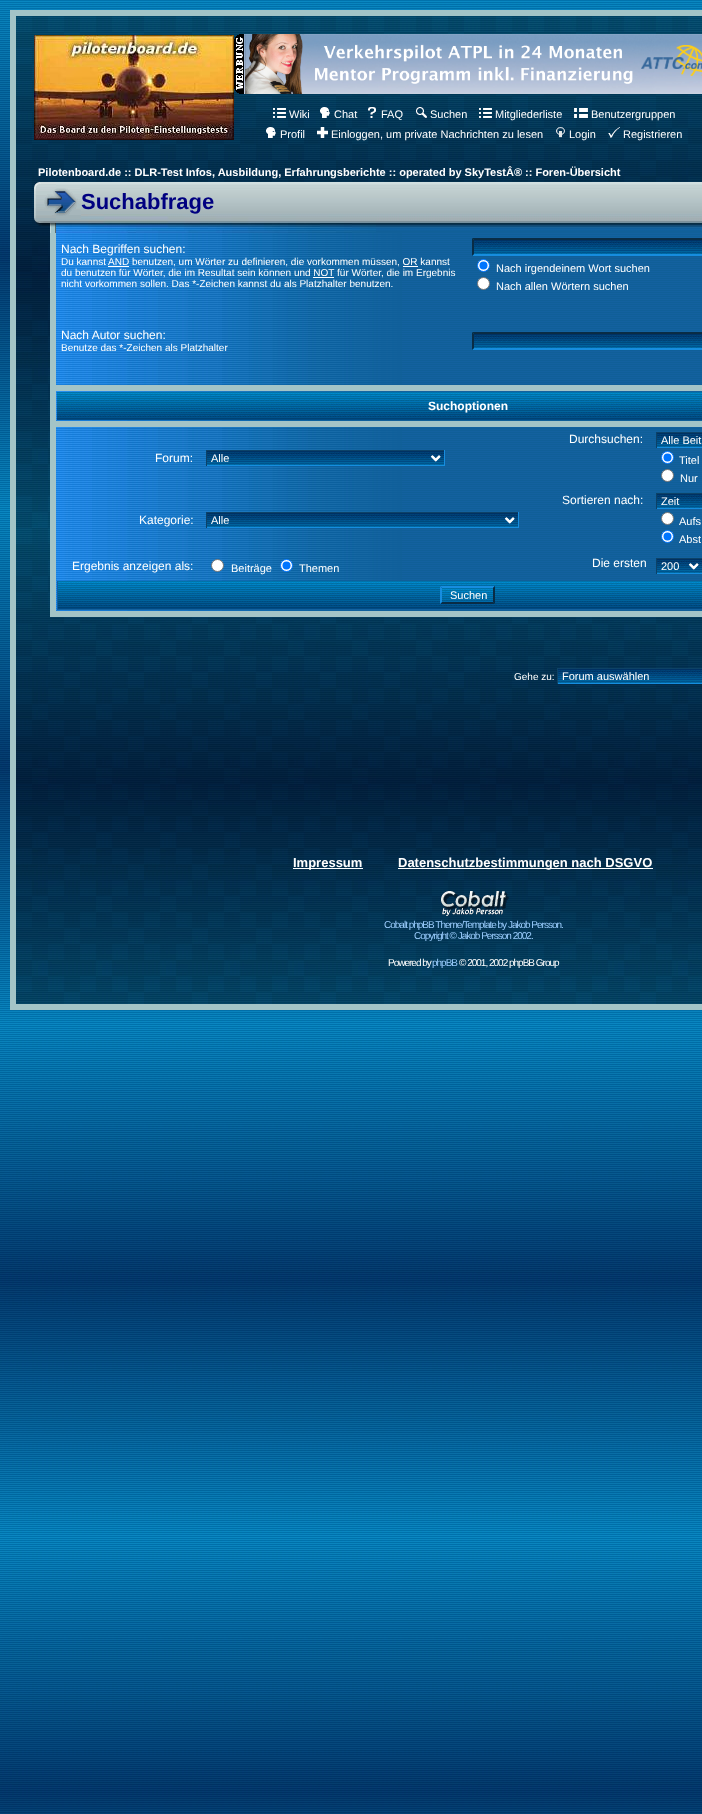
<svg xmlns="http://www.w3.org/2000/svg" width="702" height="1814">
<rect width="100%" height="100%" fill="#fff"/>
<image x="0" y="0" width="702" height="1814" href="media/1.png"/>
<rect x="10" y="10" width="692" height="6" fill="#a3c4c7"/>
<rect x="10" y="16" width="6" height="994" fill="#a3c4c7"/>
<image x="16" y="16" width="686" height="988" href="media/2.png"/>
<image x="34" y="35" width="200" height="105" href="media/3.png"/>
<image x="234" y="34" width="10" height="60" href="media/4.png"/>
<image x="244" y="34" width="458" height="60" href="media/5.png"/>
<image x="273" y="108" width="13" height="10" href="media/6.png"/>
<text x="289" y="118" style="font-family:Liberation Sans;font-size:11px;fill:#fff">Wiki</text>
<image x="320" y="107" width="10" height="11" href="media/7.png"/>
<text x="334" y="118" style="font-family:Liberation Sans;font-size:11px;fill:#fff">Chat</text>
<image x="368" y="107" width="8" height="11" href="media/8.png"/>
<text x="381" y="118" style="font-family:Liberation Sans;font-size:11px;fill:#fff">FAQ</text>
<image x="416" y="107" width="11" height="11" href="media/9.png"/>
<text x="430" y="118" style="font-family:Liberation Sans;font-size:11px;fill:#fff">Suchen</text>
<image x="479" y="108" width="13" height="10" href="media/10.png"/>
<text x="495" y="118" style="font-family:Liberation Sans;font-size:11px;fill:#fff">Mitgliederliste</text>
<image x="574" y="108" width="14" height="10" href="media/11.png"/>
<text x="591" y="118" style="font-family:Liberation Sans;font-size:11px;fill:#fff">Benutzergruppen</text>
<image x="266" y="127" width="10" height="11" href="media/12.png"/>
<text x="280" y="138" style="font-family:Liberation Sans;font-size:11px;fill:#fff">Profil</text>
<image x="317" y="127" width="11" height="11" href="media/13.png"/>
<text x="331" y="138" style="font-family:Liberation Sans;font-size:11px;fill:#fff">Einloggen, um private Nachrichten zu lesen</text>
<image x="556" y="127" width="9" height="11" href="media/14.png"/>
<text x="569" y="138" style="font-family:Liberation Sans;font-size:11px;fill:#fff">Login</text>
<image x="608" y="127" width="12" height="11" href="media/15.png"/>
<text x="623" y="138" style="font-family:Liberation Sans;font-size:11px;fill:#fff">Registrieren</text>
<text x="38" y="176" style="font-family:Liberation Sans;font-size:11px;font-weight:bold;fill:#fff">Pilotenboard.de :: DLR-Test Infos, Ausbildung, Erfahrungsberichte :: operated by SkyTestÂ® :: Foren-Übersicht</text>
<image x="34" y="182" width="22" height="51" href="media/16.png"/>
<image x="56" y="182" width="646" height="51" href="media/17.png"/>
<image x="56" y="214" width="320" height="19" href="media/18.png"/>
<image x="56" y="188" width="25" height="31" href="media/19.png"/>
<text x="81" y="209" style="font-family:Liberation Sans;font-size:22px;font-weight:bold;fill:#000080">Suchabfrage</text>
<rect x="50" y="233" width="6" height="384" fill="#a3c4c7"/>
<image x="402" y="233" width="300" height="152" href="media/20.png"/>
<image x="56" y="233" width="346" height="152" href="media/21.png"/>
<text x="61" y="253" style="font-family:Liberation Sans;font-size:12px;fill:#fff">Nach Begriffen suchen:</text>
<text x="61" y="265" style="font-family:Liberation Sans;font-size:10px;fill:#fff">Du kannst</text>
<rect x="108" y="266" width="21" height="1" fill="#fff"/>
<text x="108" y="265" style="font-family:Liberation Sans;font-size:10px;fill:#fff">AND benutzen, um Wörter zu definieren, die vorkommen müssen, OR kannst</text>
<rect x="403" y="266" width="15" height="1" fill="#fff"/>
<text x="61" y="276" style="font-family:Liberation Sans;font-size:10px;fill:#fff">du benutzen für Wörter, die im Resultat sein können und NOT für Wörter, die im Ergebnis</text>
<rect x="313" y="277" width="21" height="1" fill="#fff"/>
<text x="61" y="287" style="font-family:Liberation Sans;font-size:10px;fill:#fff">nicht vorkommen sollen. Das *-Zeichen kannst du als Platzhalter benutzen.</text>
<image x="472" y="238" width="230" height="18" href="media/22.png"/>
<path d="M472 238h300l-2 2h-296z" fill="#092c45"/>
<path d="M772 256h-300l2-2h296z" fill="#178ddf"/>
<path d="M472 256v-18l2 2v14z" fill="#092c45"/>
<circle cx="483.5" cy="265.5" r="6" fill="#fff" stroke="#0075ff"/>
<circle cx="483.5" cy="265.5" r="4" fill="#0075ff"/>
<text x="496" y="272" style="font-family:Liberation Sans;font-size:11px;fill:#fff">Nach irgendeinem Wort suchen</text>
<circle cx="483.5" cy="283.5" r="6" fill="#fff" stroke="#767676"/>
<text x="496" y="290" style="font-family:Liberation Sans;font-size:11px;fill:#fff">Nach allen Wörtern suchen</text>
<text x="61" y="339" style="font-family:Liberation Sans;font-size:12px;fill:#fff">Nach Autor suchen:</text>
<text x="61" y="351" style="font-family:Liberation Sans;font-size:10px;fill:#fff">Benutze das *-Zeichen als Platzhalter</text>
<image x="472" y="332" width="230" height="18" href="media/22.png"/>
<path d="M472 332h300l-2 2h-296z" fill="#092c45"/>
<path d="M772 350h-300l2-2h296z" fill="#178ddf"/>
<path d="M472 350v-18l2 2v14z" fill="#092c45"/>
<rect x="56" y="385" width="646" height="6" fill="#a3c4c7"/>
<image x="402" y="391" width="300" height="30" href="media/23.png"/>
<image x="56" y="391" width="346" height="30" href="media/24.png"/>
<image x="57" y="392" width="645" height="28" href="media/25.png"/>
<text x="428" y="410" style="font-family:Liberation Sans;font-size:12px;font-weight:bold;fill:#fff">Suchoptionen</text>
<rect x="56" y="421" width="646" height="6" fill="#a3c4c7"/>
<image x="402" y="427" width="300" height="184" href="media/26.png"/>
<image x="56" y="427" width="346" height="184" href="media/27.png"/>
<text x="155" y="462" style="font-family:Liberation Sans;font-size:12px;fill:#fff">Forum:</text>
<image x="207" y="451" width="237" height="14" href="media/28.png"/>
<rect x="206" y="450" width="239" height="1" fill="#0d4267"/>
<rect x="444" y="450" width="1" height="16" fill="#178ddf"/>
<rect x="206" y="465" width="239" height="1" fill="#178ddf"/>
<rect x="206" y="450" width="1" height="16" fill="#0d4267"/>
<path d="M431.5 456l4 4l4-4" fill="none" stroke="#fff" stroke-width="2"/>
<text x="211" y="462" style="font-family:Liberation Sans;font-size:11px;fill:#fff">Alle</text>
<text x="569" y="443" style="font-family:Liberation Sans;font-size:12px;fill:#fff">Durchsuchen:</text>
<image x="657" y="433" width="45" height="14" href="media/29.png"/>
<rect x="656" y="432" width="46" height="1" fill="#0d4267"/>
<rect x="656" y="447" width="46" height="1" fill="#178ddf"/>
<rect x="656" y="432" width="1" height="16" fill="#0d4267"/>
<text x="661" y="444" style="font-family:Liberation Sans;font-size:11px;fill:#fff">Alle Beit</text>
<circle cx="667.5" cy="457.5" r="6" fill="#fff" stroke="#0075ff"/>
<circle cx="667.5" cy="457.5" r="4" fill="#0075ff"/>
<text x="679" y="464" style="font-family:Liberation Sans;font-size:11px;fill:#fff">Titel</text>
<circle cx="667.5" cy="475.5" r="6" fill="#fff" stroke="#767676"/>
<text x="680" y="482" style="font-family:Liberation Sans;font-size:11px;fill:#fff">Nur</text>
<text x="139" y="524" style="font-family:Liberation Sans;font-size:12px;fill:#fff">Kategorie:</text>
<image x="207" y="513" width="311" height="14" href="media/30.png"/>
<rect x="206" y="512" width="313" height="1" fill="#0d4267"/>
<rect x="518" y="512" width="1" height="16" fill="#178ddf"/>
<rect x="206" y="527" width="313" height="1" fill="#178ddf"/>
<rect x="206" y="512" width="1" height="16" fill="#0d4267"/>
<path d="M505.5 518l4 4l4-4" fill="none" stroke="#fff" stroke-width="2"/>
<text x="211" y="524" style="font-family:Liberation Sans;font-size:11px;fill:#fff">Alle</text>
<text x="562" y="504" style="font-family:Liberation Sans;font-size:12px;fill:#fff">Sortieren nach:</text>
<image x="657" y="494" width="45" height="14" href="media/29.png"/>
<rect x="656" y="493" width="46" height="1" fill="#0d4267"/>
<rect x="656" y="508" width="46" height="1" fill="#178ddf"/>
<rect x="656" y="493" width="1" height="16" fill="#0d4267"/>
<text x="661" y="505" style="font-family:Liberation Sans;font-size:11px;fill:#fff">Zeit</text>
<circle cx="667.5" cy="518.5" r="6" fill="#fff" stroke="#767676"/>
<text x="679" y="525" style="font-family:Liberation Sans;font-size:11px;fill:#fff">Aufs</text>
<circle cx="667.5" cy="536.5" r="6" fill="#fff" stroke="#0075ff"/>
<circle cx="667.5" cy="536.5" r="4" fill="#0075ff"/>
<text x="679" y="543" style="font-family:Liberation Sans;font-size:11px;fill:#fff">Abst</text>
<text x="72" y="570" style="font-family:Liberation Sans;font-size:12px;fill:#fff">Ergebnis anzeigen als:</text>
<circle cx="217.5" cy="565.5" r="6" fill="#fff" stroke="#767676"/>
<text x="231" y="572" style="font-family:Liberation Sans;font-size:11px;fill:#fff">Beiträge</text>
<circle cx="286.5" cy="565.5" r="6" fill="#fff" stroke="#0075ff"/>
<circle cx="286.5" cy="565.5" r="4" fill="#0075ff"/>
<text x="299" y="572" style="font-family:Liberation Sans;font-size:11px;fill:#fff">Themen</text>
<text x="592" y="567" style="font-family:Liberation Sans;font-size:12px;fill:#fff">Die ersten</text>
<image x="657" y="559" width="45" height="14" href="media/31.png"/>
<rect x="656" y="558" width="46" height="1" fill="#0d4267"/>
<rect x="656" y="573" width="46" height="1" fill="#178ddf"/>
<rect x="656" y="558" width="1" height="16" fill="#0d4267"/>
<path d="M689.5 564l4 4l4-4" fill="none" stroke="#fff" stroke-width="2"/>
<text x="661" y="570" style="font-family:Liberation Sans;font-size:11px;fill:#fff">200</text>
<image x="58" y="581" width="644" height="28" href="media/32.png"/>
<rect x="57" y="609" width="345" height="1" fill="#13619f"/>
<rect x="57" y="581" width="1" height="29" fill="#13619f"/>
<image x="440" y="586" width="55" height="18" href="media/33.png"/>
<path d="M440 586h55l-2 2h-51z" fill="#178ddf"/>
<path d="M495 586v18l-2-2v-14z" fill="#092c45"/>
<path d="M495 604h-55l2-2h51z" fill="#092c45"/>
<path d="M440 604v-18l2 2v14z" fill="#178ddf"/>
<text x="450" y="599" style="font-family:Liberation Sans;font-size:11px;fill:#fff">Suchen</text>
<rect x="56" y="611" width="646" height="6" fill="#a3c4c7"/>
<text x="514" y="680" style="font-family:Liberation Sans;font-size:10px;fill:#fff">Gehe zu:</text>
<image x="558" y="669" width="144" height="14" href="media/34.png"/>
<rect x="557" y="668" width="145" height="1" fill="#0d4267"/>
<rect x="557" y="683" width="145" height="1" fill="#178ddf"/>
<rect x="557" y="668" width="1" height="16" fill="#0d4267"/>
<text x="562" y="680" style="font-family:Liberation Sans;font-size:11px;fill:#fff">Forum auswählen</text>
<rect x="293" y="868" width="70" height="1" fill="#fff"/>
<text x="293" y="867" style="font-family:Liberation Sans;font-size:13px;font-weight:bold;fill:#fff">Impressum</text>
<rect x="398" y="868" width="255" height="1" fill="#fff"/>
<text x="398" y="867" style="font-family:Liberation Sans;font-size:13px;font-weight:bold;fill:#fff">Datenschutzbestimmungen nach DSGVO</text>
<image x="441" y="891" width="68" height="25" href="media/35.png"/>
<text x="384" y="928" style="font-family:Liberation Sans;font-size:10px;letter-spacing:-1px;fill:#9cceff">Cobalt phpBB Theme/Template by Jakob Persson.</text>
<text x="414" y="939" style="font-family:Liberation Sans;font-size:10px;letter-spacing:-1px;fill:#9cceff">Copyright © Jakob Persson 2002.</text>
<text x="388" y="966" style="font-family:Liberation Sans;font-size:10px;letter-spacing:-1px;fill:#fff">Powered by</text>
<text x="432" y="966" style="font-family:Liberation Sans;font-size:10px;letter-spacing:-1px;fill:#9cceff">phpBB</text>
<text x="459" y="966" style="font-family:Liberation Sans;font-size:10px;letter-spacing:-1px;fill:#fff">© 2001, 2002 phpBB Group</text>
<rect x="16" y="1004" width="686" height="6" fill="#a3c4c7"/>
</svg>
